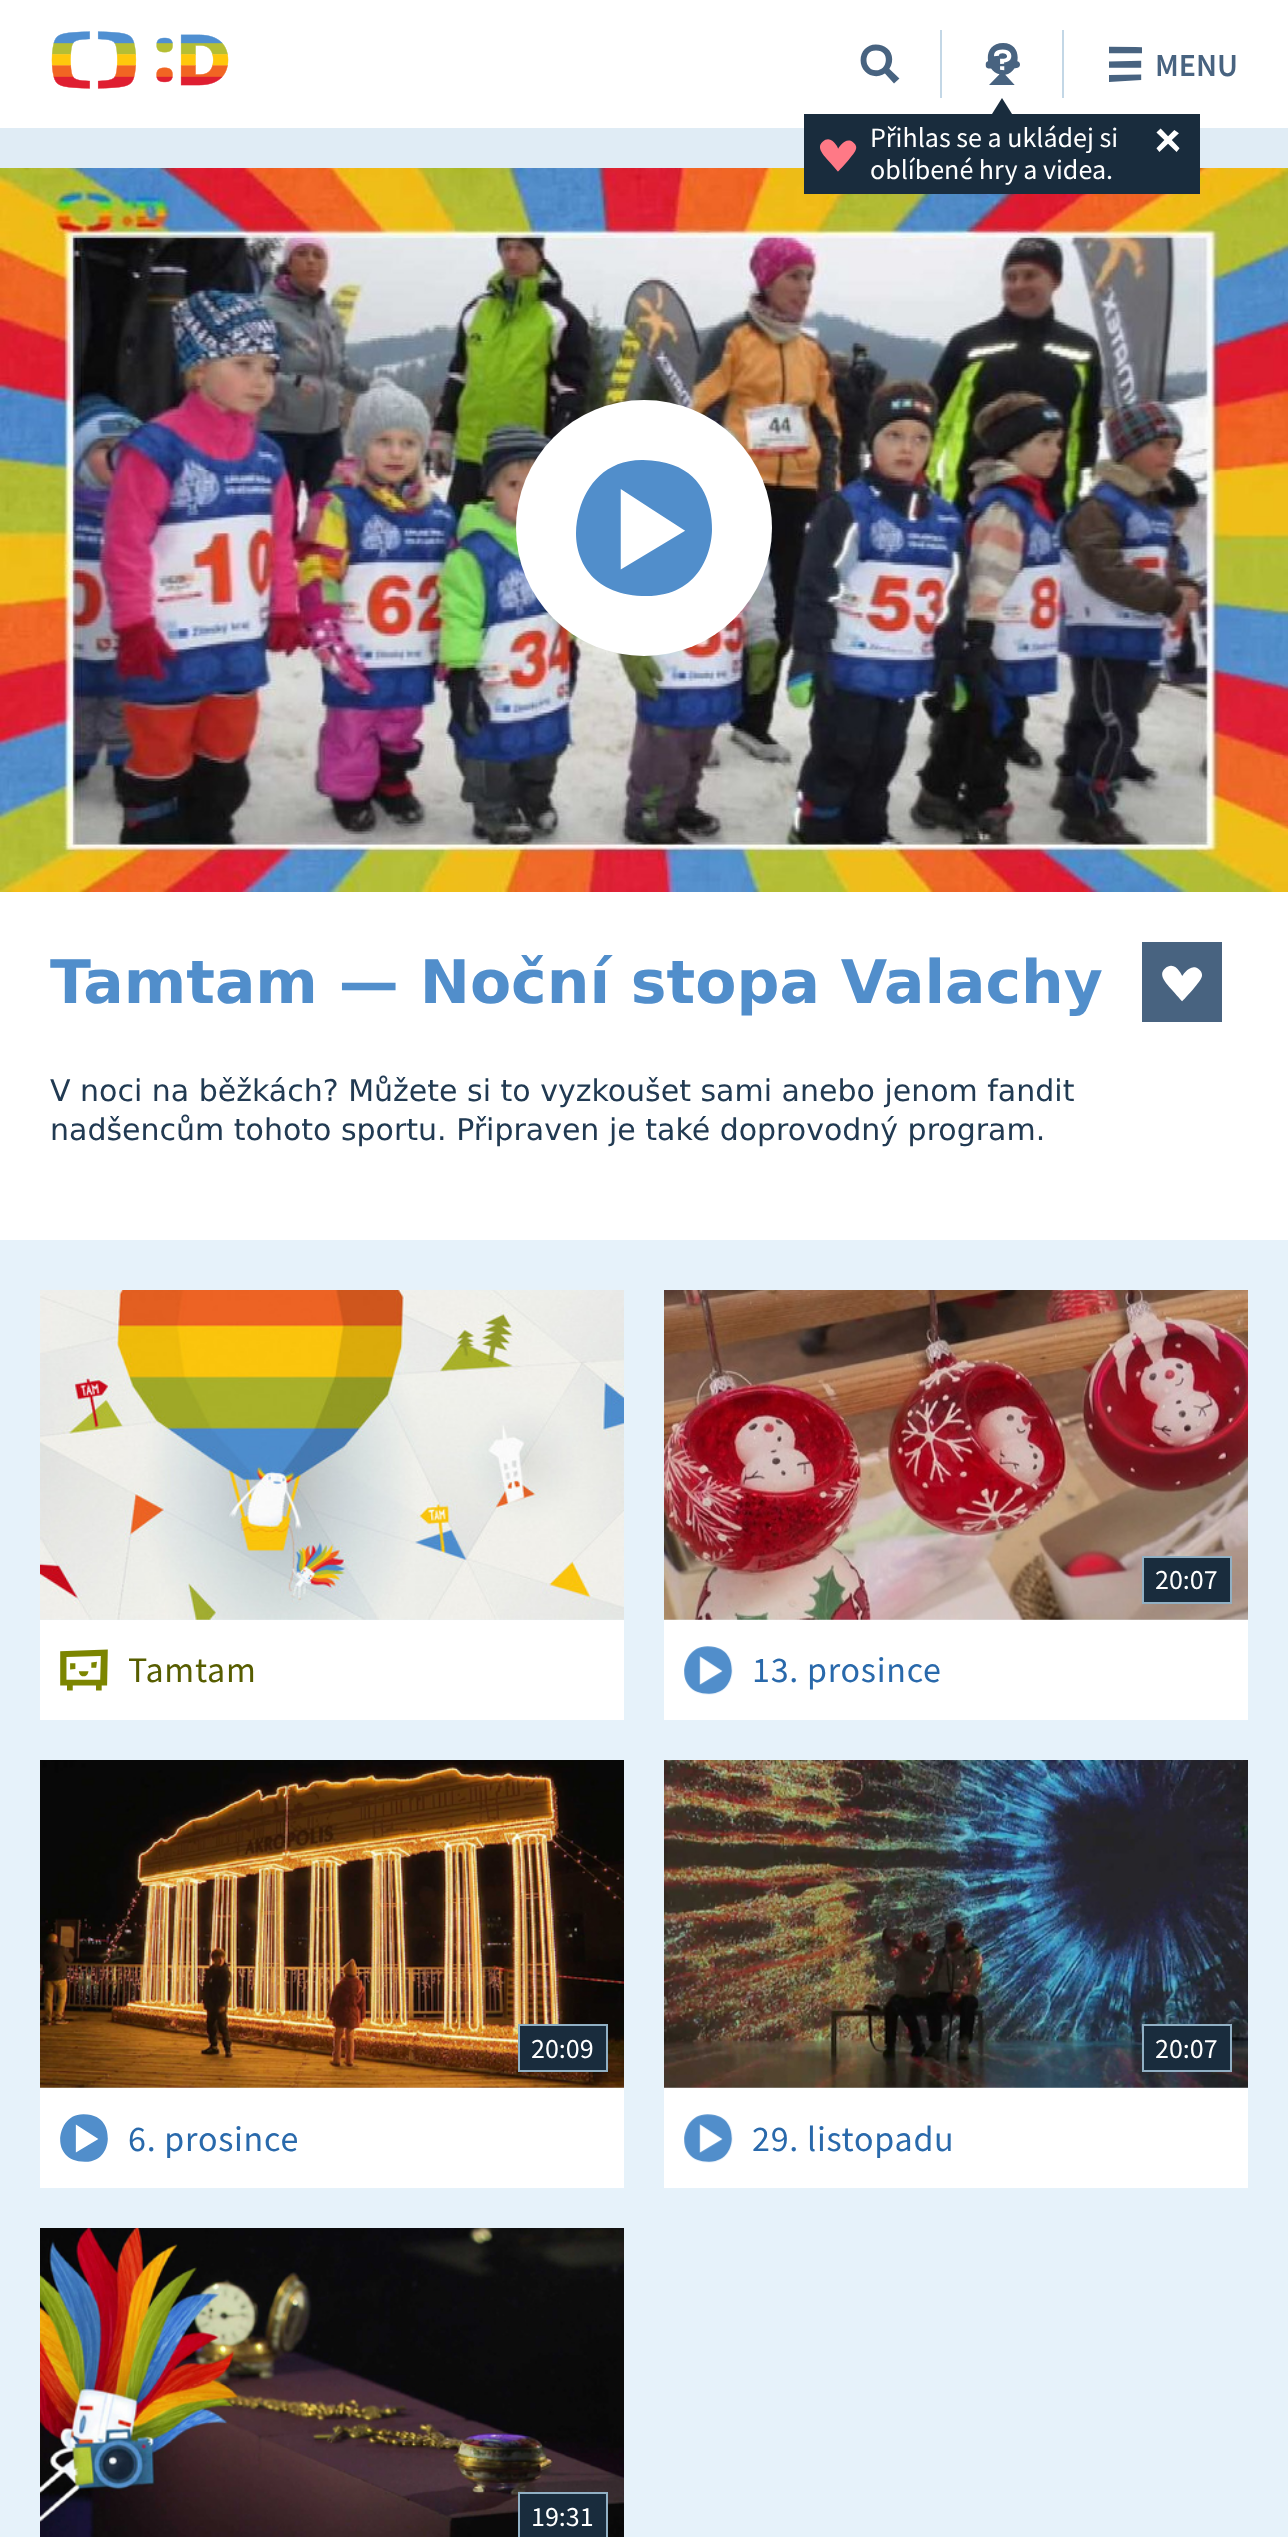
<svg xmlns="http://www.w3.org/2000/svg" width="1288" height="2537">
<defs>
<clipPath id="clip1"><rect x="128" y="2116" width="170" height="42"/></clipPath>
<clipPath id="clip2"><rect x="752" y="2116" width="202" height="42"/></clipPath>
</defs>
<rect width="100%" height="100%" fill="#e0ecf5"/>
<rect width="1288" height="128" fill="#fff"/>
<image x="51" y="31" width="178" height="58" href="media/1.png"/>
<image x="860" y="44" width="40" height="40" href="media/2.png"/>
<rect x="1062" y="30" width="2" height="68" fill="#c3d7e6"/>
<image x="1109" y="46" width="33" height="36" href="media/3.png"/>
<text x="1155" y="76" style="font-family:Source Sans Pro;font-size:32px;font-weight:600;fill:#486380">MENU</text>
<rect x="940" y="30" width="2" height="68" fill="#c3d7e6"/>
<image x="985" y="43" width="35" height="42" href="media/4.png"/>
<image x="0" y="168" width="1288" height="724" href="media/7.png"/>
<rect x="804" y="114" width="396" height="80" fill="#192c3d"/>
<path d="M1012 114h-20l10-16z" fill="#192c3d"/>
<image x="820" y="139" width="37" height="33" href="media/5.png"/>
<text x="870" y="147" style="font-family:Source Sans Pro;font-size:28px;fill:#fff">Přihlas se a ukládej si</text>
<text x="870" y="179" style="font-family:Source Sans Pro;font-size:28px;fill:#fff">oblíbené hry a videa.</text>
<image x="1156" y="128" width="24" height="24" href="media/6.png"/>
<image x="516" y="400" width="256" height="256" href="media/8.png"/>
<rect y="892" width="1288" height="348" fill="#fff"/>
<text x="50" y="1003" style="font-family:DejaVu Sans;font-size:60px;font-weight:bold;fill:#518ecb">Tamtam — Noční stopa Valachy</text>
<rect x="1142" y="942" width="80" height="80" fill="#486380"/>
<image x="1162" y="965" width="40" height="37" href="media/9.png"/>
<text x="50" y="1101" style="font-family:DejaVu Sans;font-size:30px;fill:#213a52">V noci na běžkách? Můžete si to vyzkoušet sami anebo jenom fandit</text>
<text x="50" y="1140" style="font-family:DejaVu Sans;font-size:30px;fill:#213a52">nadšencům tohoto sportu. Připraven je také doprovodný program.</text>
<rect y="1240" width="1288" height="1297" fill="#e6f2fa"/>
<image x="40" y="1290" width="584" height="330" href="media/10.png"/>
<rect x="40" y="1620" width="584" height="100" fill="#fff"/>
<image x="60" y="1649" width="48" height="42" href="media/11.png"/>
<text x="128" y="1682" style="font-family:Source Sans Pro;font-size:36px;letter-spacing:0.75px;fill:#575d00">Tamtam</text>
<image x="664" y="1290" width="584" height="330" href="media/12.png"/>
<rect x="1143" y="1557" width="88" height="46" fill="#192c3d" stroke="#91b0c4" stroke-width="2"/>
<text x="1155" y="1589" style="font-family:Source Sans Pro;font-size:28px;fill:#fff">20:07</text>
<rect x="664" y="1620" width="584" height="100" fill="#fff"/>
<image x="684" y="1646" width="49" height="49" href="media/13.png"/>
<text x="752" y="1682" style="font-family:Source Sans Pro;font-size:36px;letter-spacing:0.75px;fill:#2969ab">13. prosince</text>
<image x="40" y="1760" width="584" height="328" href="media/14.png"/>
<rect x="519" y="2025" width="88" height="46" fill="#192c3d" stroke="#91b0c4" stroke-width="2"/>
<text x="531" y="2058" style="font-family:Source Sans Pro;font-size:28px;fill:#fff">20:09</text>
<rect x="40" y="2088" width="584" height="100" fill="#fff"/>
<image x="60" y="2114" width="48" height="48" href="media/15.png"/>
<g clip-path="url(#clip1)">
<text x="128" y="2151" style="font-family:Source Sans Pro;font-size:36px;letter-spacing:0.75px;fill:#2969ab">6. prosince</text>
</g>
<image x="664" y="1760" width="584" height="328" href="media/16.png"/>
<rect x="1143" y="2025" width="88" height="46" fill="#192c3d" stroke="#91b0c4" stroke-width="2"/>
<text x="1155" y="2058" style="font-family:Source Sans Pro;font-size:28px;fill:#fff">20:07</text>
<rect x="664" y="2088" width="584" height="100" fill="#fff"/>
<image x="684" y="2114" width="49" height="49" href="media/13.png"/>
<g clip-path="url(#clip2)">
<text x="752" y="2151" style="font-family:Source Sans Pro;font-size:36px;letter-spacing:0.75px;fill:#2969ab">29. listopadu</text>
</g>
<image x="40" y="2228" width="584" height="309" href="media/17.png"/>
<rect x="519" y="2493" width="88" height="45" fill="#192c3d" stroke="#91b0c4" stroke-width="2"/>
<text x="531" y="2526" style="font-family:Source Sans Pro;font-size:28px;fill:#fff">19:31</text>
</svg>
